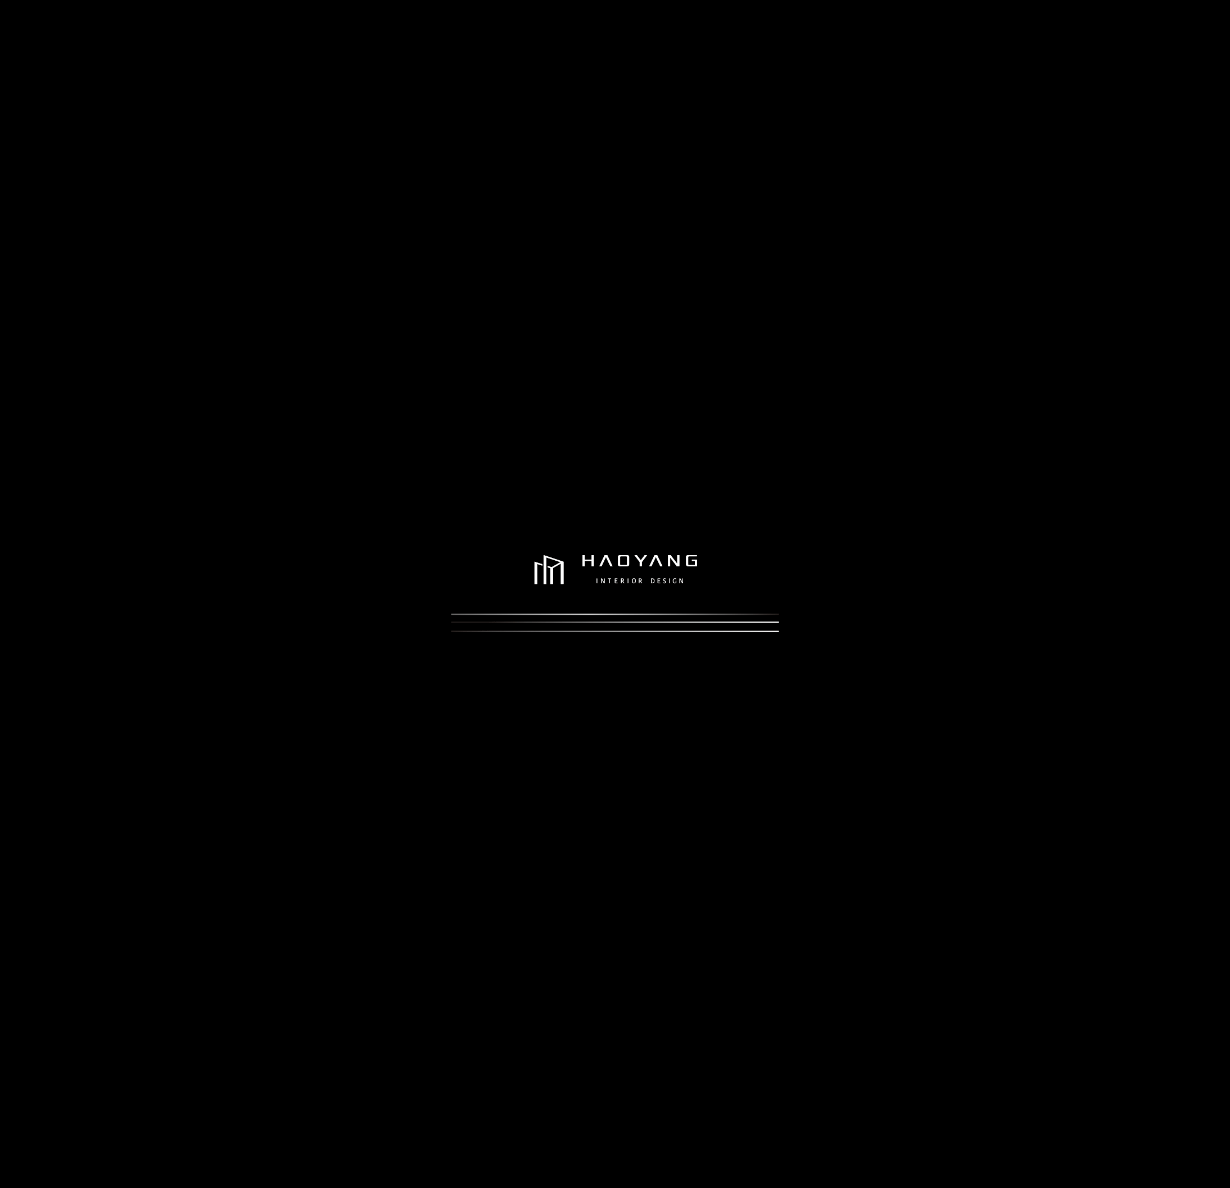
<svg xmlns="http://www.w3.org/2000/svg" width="1230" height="1188">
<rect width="100%" height="100%" fill="#000"/>
<image x="451" y="555" width="328" height="77" href="media/1.png"/>
</svg>
